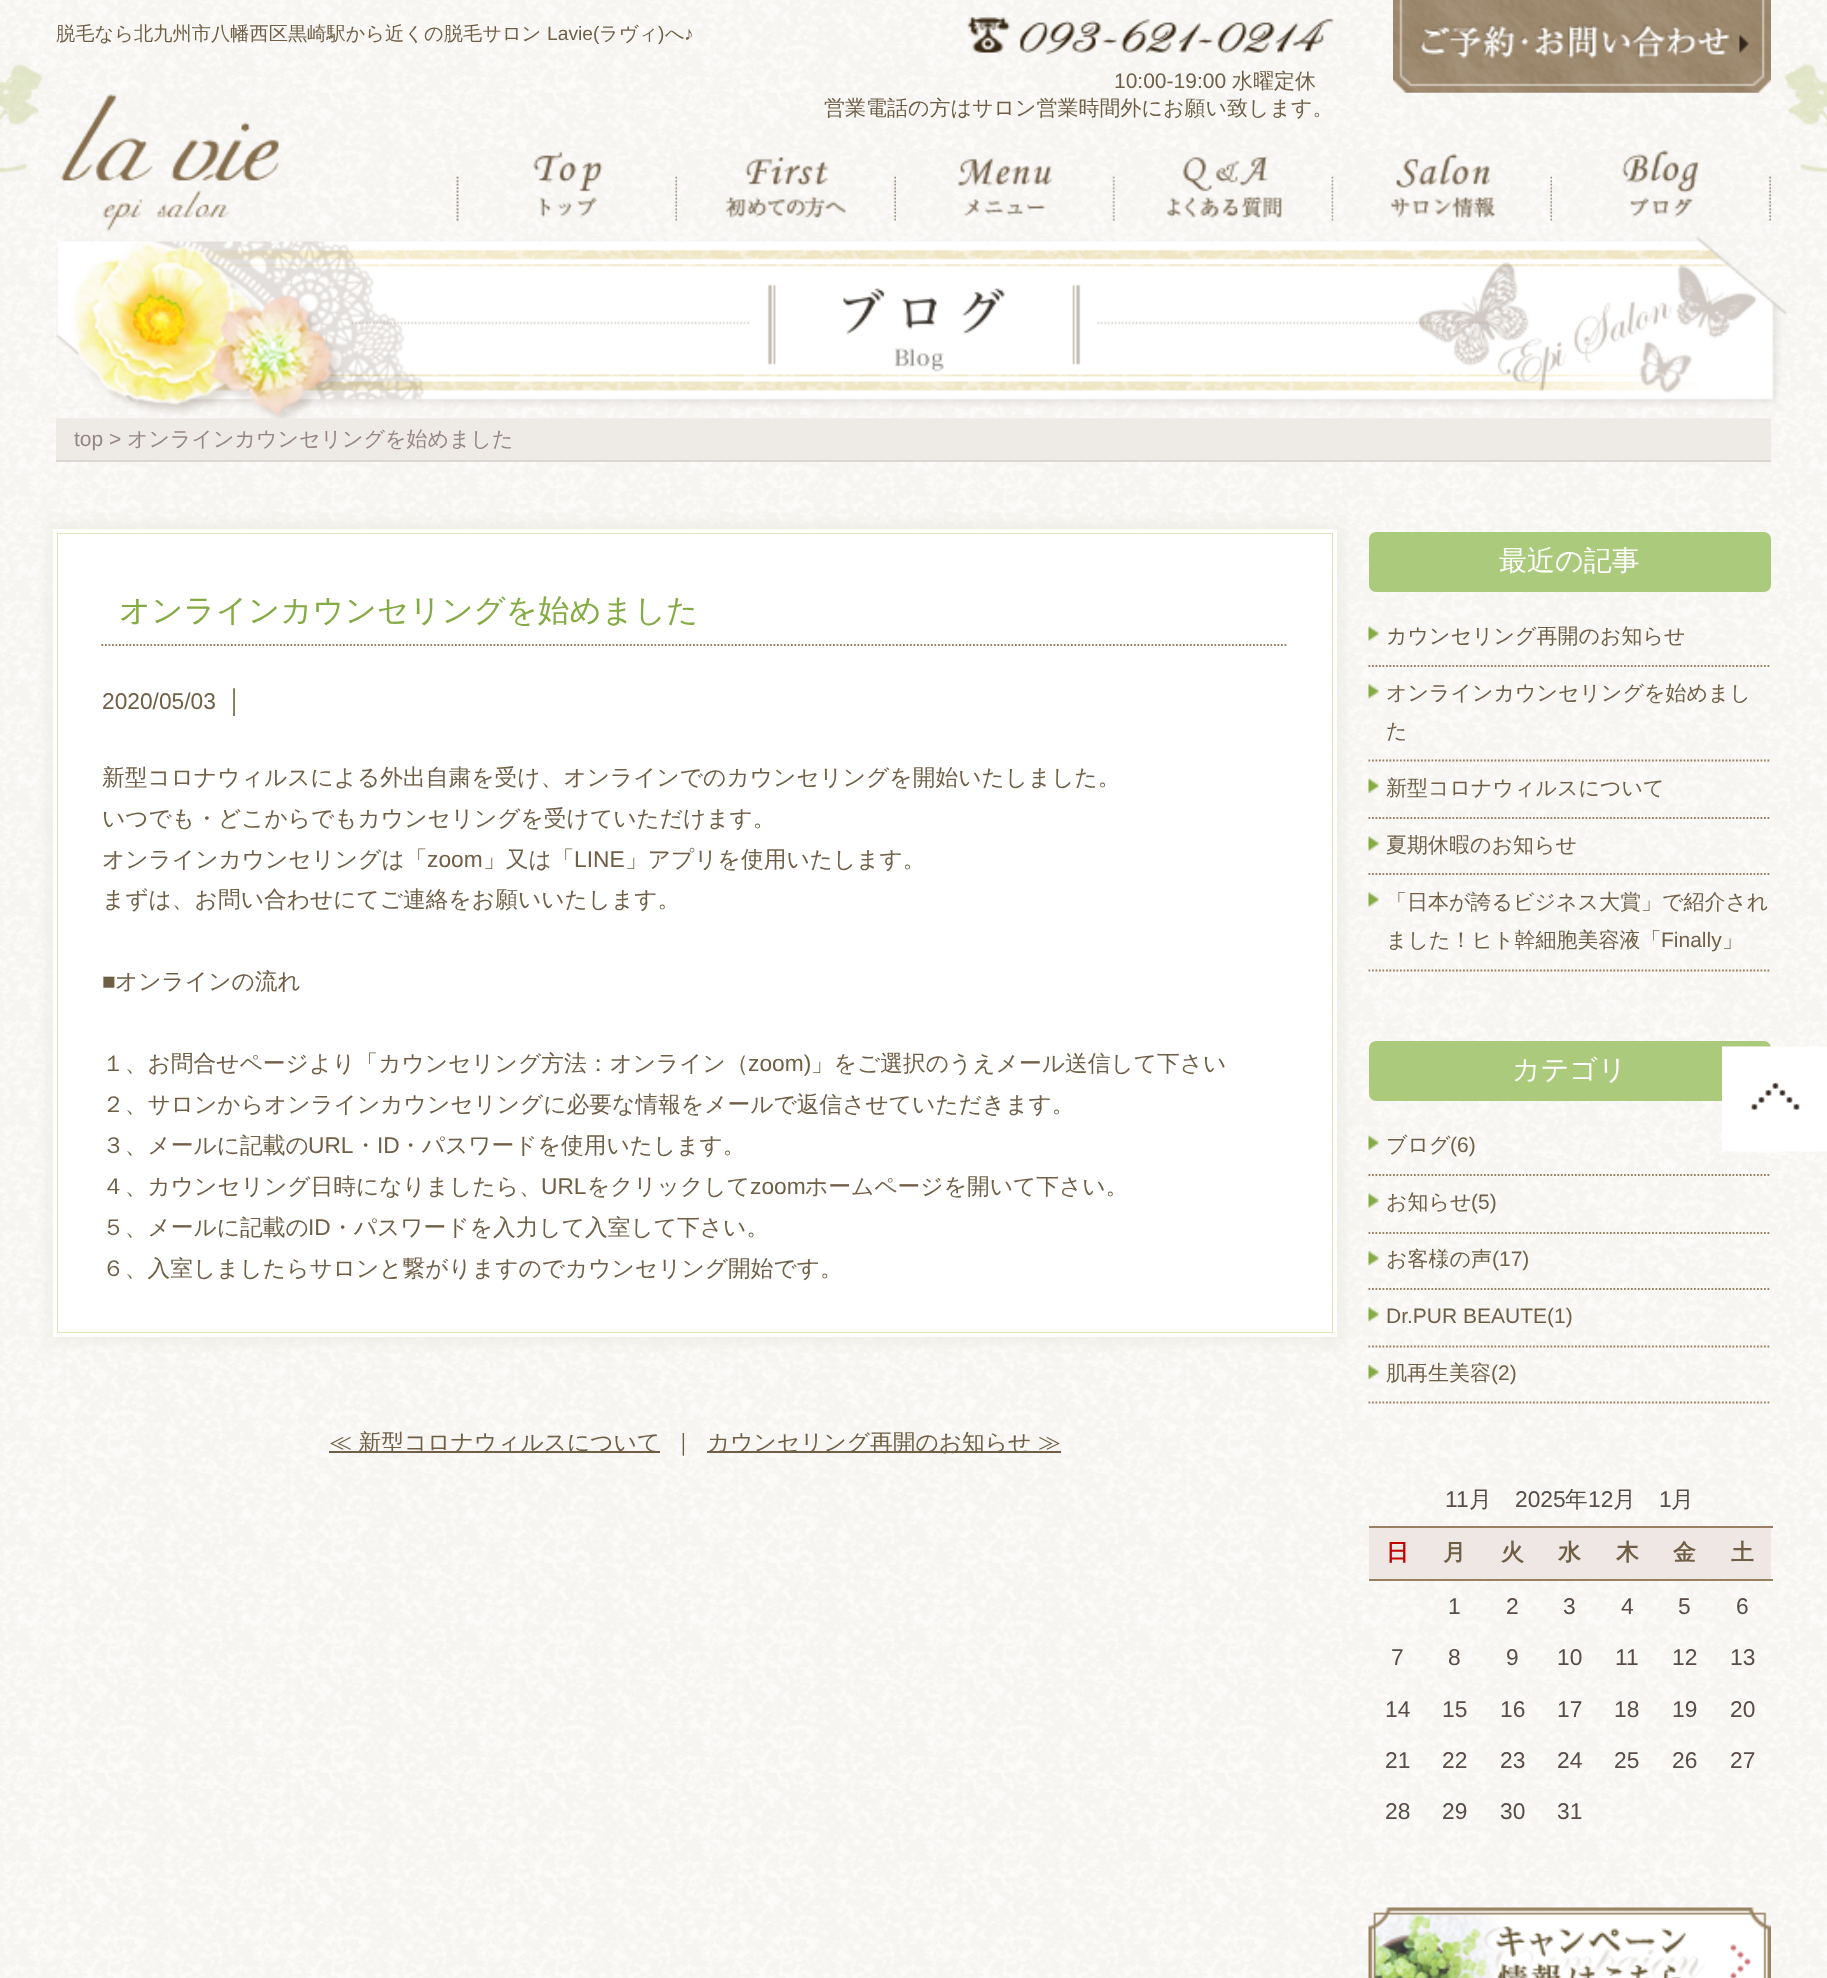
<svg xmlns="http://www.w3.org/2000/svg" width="1827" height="1978">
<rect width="100%" height="100%" fill="#fff"/>
<image x="0" y="0" width="1827" height="1978" href="media/1.png"/>
<image x="0" y="64" width="1827" height="110" href="media/2.png"/>
<text x="56" y="40" style="font-family:WenQuanYi Zen Hei;font-size:19.25px;font-weight:500;fill:#705f46">脱毛なら北九州市八幡西区黒崎駅から近くの脱毛サロン</text>
<text x="547" y="40" style="font-family:Liberation Sans;font-size:19.25px;fill:#705f46">Lavie(</text>
<text x="599" y="40" style="font-family:WenQuanYi Zen Hei;font-size:19.25px;font-weight:500;fill:#705f46">ラヴィ</text>
<text x="658" y="40" style="font-family:Liberation Sans;font-size:19.25px;fill:#705f46">)</text>
<text x="665" y="40" style="font-family:WenQuanYi Zen Hei;font-size:19.25px;font-weight:500;fill:#705f46">へ</text>
<text x="684" y="40" style="font-family:Liberation Sans;font-size:19.25px;fill:#705f46">♪</text>
<image x="1393" y="0" width="378" height="93" href="media/3.png"/>
<image x="56" y="89" width="247" height="147" href="media/4.png"/>
<image x="967" y="17" width="367" height="38" href="media/5.png"/>
<text x="1114" y="88" style="font-family:Liberation Sans;font-size:21px;fill:#705f46">10:00-19:00</text>
<text x="1232" y="88" style="font-family:WenQuanYi Zen Hei;font-size:21px;font-weight:500;fill:#705f46">水曜定休</text>
<text x="824" y="115" style="font-family:WenQuanYi Zen Hei;font-size:21px;font-weight:500;fill:#705f46">営業電話の方はサロン営業時間外にお願い致します。</text>
<image x="456" y="149" width="222" height="87" href="media/6.png"/>
<image x="456" y="152" width="222" height="69" href="media/7.png"/>
<image x="677" y="149" width="219" height="87" href="media/8.png"/>
<image x="677" y="157" width="169" height="64" href="media/9.png"/>
<image x="896" y="149" width="219" height="87" href="media/10.png"/>
<image x="957" y="158" width="158" height="63" href="media/11.png"/>
<image x="1114" y="149" width="220" height="87" href="media/12.png"/>
<image x="1114" y="156" width="220" height="65" href="media/13.png"/>
<image x="1333" y="149" width="220" height="87" href="media/14.png"/>
<image x="1333" y="153" width="220" height="68" href="media/15.png"/>
<image x="1552" y="149" width="219" height="87" href="media/16.png"/>
<image x="1552" y="150" width="148" height="71" href="media/17.png"/>
<rect x="56" y="418" width="1715" height="42" fill="#eeebe7"/>
<image x="56" y="236" width="1731" height="183" href="media/18.png"/>
<rect x="56" y="460" width="1715" height="2" fill="#dad6d1"/>
<text x="74" y="446" style="font-family:Liberation Sans;font-size:21px;fill:#968683">top &gt;</text>
<text x="127" y="446" style="font-family:WenQuanYi Zen Hei;font-size:21px;font-weight:500;fill:#968683">オンラインカウンセリングを始めました</text>
<rect x="49" y="525" width="1292" height="816" fill="#edebe4" filter="blur(7px)"/>
<rect x="57" y="533" width="1276" height="800" fill="#fff" stroke="#dae6bb" stroke-width="2"/>
<path d="M101.5 645h1186.5" fill="none" stroke="#998060" stroke-width="1.8" stroke-dasharray="1.75 1.75"/>
<rect x="55" y="531" width="1280" height="804" fill="none" stroke="#fff" stroke-width="4"/>
<text x="119" y="621" style="font-family:WenQuanYi Zen Hei;font-size:31.5px;font-weight:500;fill:#84aa44">オンラインカウンセリングを始めました</text>
<text x="102" y="709" style="font-family:Liberation Sans;font-size:22.75px;fill:#705f46">2020/05/03</text>
<text x="228" y="709" style="font-family:Liberation Sans;font-size:22.75px;fill:#705f46">│</text>
<text x="102" y="785" style="font-family:WenQuanYi Zen Hei;font-size:22.75px;font-weight:500;fill:#705f46">新型コロナウィルスによる外出自粛を受け、オンラインでのカウンセリングを開始いたしました。</text>
<text x="102" y="826" style="font-family:WenQuanYi Zen Hei;font-size:22.75px;font-weight:500;fill:#705f46">いつでも・どこからでもカウンセリングを受けていただけます。</text>
<text x="102" y="867" style="font-family:WenQuanYi Zen Hei;font-size:22.75px;font-weight:500;fill:#705f46">オンラインカウンセリングは「</text>
<text x="427" y="867" style="font-family:Liberation Sans;font-size:22.75px;fill:#705f46">zoom</text>
<text x="483" y="867" style="font-family:WenQuanYi Zen Hei;font-size:22.75px;font-weight:500;fill:#705f46">」又は「</text>
<text x="574" y="867" style="font-family:Liberation Sans;font-size:22.75px;fill:#705f46">LINE</text>
<text x="625" y="867" style="font-family:WenQuanYi Zen Hei;font-size:22.75px;font-weight:500;fill:#705f46">」アプリを使用いたします。</text>
<text x="102" y="907" style="font-family:WenQuanYi Zen Hei;font-size:22.75px;font-weight:500;fill:#705f46">まずは、お問い合わせにてご連絡をお願いいたします。</text>
<text x="102" y="989" style="font-family:Liberation Sans;font-size:22.75px;fill:#705f46">■</text>
<text x="115" y="989" style="font-family:WenQuanYi Zen Hei;font-size:22.75px;font-weight:500;fill:#705f46">オンラインの流れ</text>
<text x="102" y="1071" style="font-family:WenQuanYi Zen Hei;font-size:22.75px;font-weight:500;fill:#705f46">１、お問合せページより「カウンセリング方法：オンライン（</text>
<text x="748" y="1071" style="font-family:Liberation Sans;font-size:22.75px;fill:#705f46">zoom)</text>
<text x="811" y="1071" style="font-family:WenQuanYi Zen Hei;font-size:22.75px;font-weight:500;fill:#705f46">」をご選択のうえメール送信して下さい</text>
<text x="102" y="1112" style="font-family:WenQuanYi Zen Hei;font-size:22.75px;font-weight:500;fill:#705f46">２、サロンからオンラインカウンセリングに必要な情報をメールで返信させていただきます。</text>
<text x="102" y="1153" style="font-family:WenQuanYi Zen Hei;font-size:22.75px;font-weight:500;fill:#705f46">３、メールに記載の</text>
<text x="308" y="1153" style="font-family:Liberation Sans;font-size:22.75px;fill:#705f46">URL</text>
<text x="354" y="1153" style="font-family:WenQuanYi Zen Hei;font-size:22.75px;font-weight:500;fill:#705f46">・</text>
<text x="377" y="1153" style="font-family:Liberation Sans;font-size:22.75px;fill:#705f46">ID</text>
<text x="399" y="1153" style="font-family:WenQuanYi Zen Hei;font-size:22.75px;font-weight:500;fill:#705f46">・パスワードを使用いたします。</text>
<text x="102" y="1194" style="font-family:WenQuanYi Zen Hei;font-size:22.75px;font-weight:500;fill:#705f46">４、カウンセリング日時になりましたら、</text>
<text x="541" y="1194" style="font-family:Liberation Sans;font-size:22.75px;fill:#705f46">URL</text>
<text x="587" y="1194" style="font-family:WenQuanYi Zen Hei;font-size:22.75px;font-weight:500;fill:#705f46">をクリックして</text>
<text x="750" y="1194" style="font-family:Liberation Sans;font-size:22.75px;fill:#705f46">zoom</text>
<text x="805" y="1194" style="font-family:WenQuanYi Zen Hei;font-size:22.75px;font-weight:500;fill:#705f46">ホームページを開いて下さい。</text>
<text x="102" y="1235" style="font-family:WenQuanYi Zen Hei;font-size:22.75px;font-weight:500;fill:#705f46">５、メールに記載の</text>
<text x="308" y="1235" style="font-family:Liberation Sans;font-size:22.75px;fill:#705f46">ID</text>
<text x="331" y="1235" style="font-family:WenQuanYi Zen Hei;font-size:22.75px;font-weight:500;fill:#705f46">・パスワードを入力して入室して下さい。</text>
<text x="102" y="1276" style="font-family:WenQuanYi Zen Hei;font-size:22.75px;font-weight:500;fill:#705f46">６、入室しましたらサロンと繋がりますのでカウンセリング開始です。</text>
<rect x="329" y="1451" width="331" height="2" fill="#705f46"/>
<text x="329" y="1450" style="font-family:WenQuanYi Zen Hei;font-size:22.75px;font-weight:500;fill:#705f46">≪ 新型コロナウィルスについて</text>
<text x="672" y="1450" style="font-family:WenQuanYi Zen Hei;font-size:22.75px;font-weight:500;fill:#705f46">｜</text>
<rect x="707" y="1451" width="354" height="2" fill="#705f46"/>
<text x="707" y="1450" style="font-family:WenQuanYi Zen Hei;font-size:22.75px;font-weight:500;fill:#705f46">カウンセリング再開のお知らせ ≫</text>
<rect x="1369" y="532" width="402" height="60" rx="7" fill="#acca7b"/>
<text x="1499" y="570" style="font-family:WenQuanYi Zen Hei;font-size:28px;font-weight:500;fill:#fff">最近の記事</text>
<image x="1368" y="626" width="11" height="15" href="media/19.png"/>
<path d="M1368.5 666h402.5" fill="none" stroke="#998060" stroke-width="1.8" stroke-dasharray="1.75 1.75"/>
<text x="1386" y="643" style="font-family:WenQuanYi Zen Hei;font-size:21px;font-weight:500;fill:#705f46">カウンセリング再開のお知らせ</text>
<image x="1368" y="684" width="11" height="15" href="media/20.png"/>
<path d="M1368.5 760.5h402.5" fill="none" stroke="#998060" stroke-width="1.8" stroke-dasharray="1.75 1.75"/>
<text x="1386" y="700" style="font-family:WenQuanYi Zen Hei;font-size:21px;font-weight:500;fill:#705f46">オンラインカウンセリングを始めまし</text>
<text x="1386" y="738" style="font-family:WenQuanYi Zen Hei;font-size:21px;font-weight:500;fill:#705f46">た</text>
<image x="1368" y="778" width="11" height="15" href="media/21.png"/>
<path d="M1368.5 818h402.5" fill="none" stroke="#998060" stroke-width="1.8" stroke-dasharray="1.75 1.75"/>
<text x="1386" y="795" style="font-family:WenQuanYi Zen Hei;font-size:21px;font-weight:500;fill:#705f46">新型コロナウィルスについて</text>
<image x="1368" y="836" width="11" height="15" href="media/19.png"/>
<path d="M1368.5 874h402.5" fill="none" stroke="#998060" stroke-width="1.8" stroke-dasharray="1.75 1.75"/>
<text x="1386" y="852" style="font-family:WenQuanYi Zen Hei;font-size:21px;font-weight:500;fill:#705f46">夏期休暇のお知らせ</text>
<image x="1368" y="892" width="11" height="15" href="media/22.png"/>
<path d="M1368.5 970.5h402.5" fill="none" stroke="#998060" stroke-width="1.8" stroke-dasharray="1.75 1.75"/>
<text x="1386" y="909" style="font-family:WenQuanYi Zen Hei;font-size:21px;font-weight:500;fill:#705f46">「日本が誇るビジネス大賞」で紹介され</text>
<text x="1386" y="947" style="font-family:WenQuanYi Zen Hei;font-size:21px;font-weight:500;fill:#705f46">ました！ヒト幹細胞美容液「</text>
<text x="1661" y="947" style="font-family:Liberation Sans;font-size:21px;fill:#705f46">Finally</text>
<text x="1722" y="947" style="font-family:WenQuanYi Zen Hei;font-size:21px;font-weight:500;fill:#705f46">」</text>
<rect x="1369" y="1041" width="402" height="60" rx="7" fill="#acca7b"/>
<text x="1512" y="1079" style="font-family:WenQuanYi Zen Hei;font-size:28px;font-weight:500;fill:#fff">カテゴリ</text>
<image x="1368" y="1135" width="11" height="15" href="media/23.png"/>
<path d="M1368.5 1175h402.5" fill="none" stroke="#998060" stroke-width="1.8" stroke-dasharray="1.75 1.75"/>
<text x="1386" y="1152" style="font-family:WenQuanYi Zen Hei;font-size:21px;font-weight:500;fill:#705f46">ブログ</text>
<text x="1450" y="1152" style="font-family:Liberation Sans;font-size:21px;fill:#705f46">(6)</text>
<image x="1368" y="1193" width="11" height="15" href="media/24.png"/>
<path d="M1368.5 1233h402.5" fill="none" stroke="#998060" stroke-width="1.8" stroke-dasharray="1.75 1.75"/>
<text x="1386" y="1209" style="font-family:WenQuanYi Zen Hei;font-size:21px;font-weight:500;fill:#705f46">お知らせ</text>
<text x="1471" y="1209" style="font-family:Liberation Sans;font-size:21px;fill:#705f46">(5)</text>
<image x="1368" y="1251" width="11" height="15" href="media/25.png"/>
<path d="M1368.5 1289h402.5" fill="none" stroke="#998060" stroke-width="1.8" stroke-dasharray="1.75 1.75"/>
<text x="1386" y="1266" style="font-family:WenQuanYi Zen Hei;font-size:21px;font-weight:500;fill:#705f46">お客様の声</text>
<text x="1492" y="1266" style="font-family:Liberation Sans;font-size:21px;fill:#705f46">(17)</text>
<image x="1368" y="1307" width="11" height="15" href="media/26.png"/>
<path d="M1368.5 1346.5h402.5" fill="none" stroke="#998060" stroke-width="1.8" stroke-dasharray="1.75 1.75"/>
<text x="1386" y="1323" style="font-family:Liberation Sans;font-size:21px;fill:#705f46">Dr.PUR BEAUTE(1)</text>
<image x="1368" y="1365" width="11" height="14" href="media/27.png"/>
<path d="M1368.5 1402.5h402.5" fill="none" stroke="#998060" stroke-width="1.8" stroke-dasharray="1.75 1.75"/>
<text x="1386" y="1380" style="font-family:WenQuanYi Zen Hei;font-size:21px;font-weight:500;fill:#705f46">肌再生美容</text>
<text x="1491" y="1380" style="font-family:Liberation Sans;font-size:21px;fill:#705f46">(2)</text>
<text x="1445" y="1507" style="font-family:Liberation Sans;font-size:22.75px;fill:#594b46">11</text>
<text x="1469" y="1507" style="font-family:WenQuanYi Zen Hei;font-size:22.75px;font-weight:500;fill:#594b46">月</text>
<text x="1515" y="1507" style="font-family:Liberation Sans;font-size:22.75px;fill:#594b46">2025</text>
<text x="1565" y="1507" style="font-family:WenQuanYi Zen Hei;font-size:22.75px;font-weight:500;fill:#594b46">年</text>
<text x="1588" y="1507" style="font-family:Liberation Sans;font-size:22.75px;fill:#594b46">12</text>
<text x="1613" y="1507" style="font-family:WenQuanYi Zen Hei;font-size:22.75px;font-weight:500;fill:#594b46">月</text>
<text x="1659" y="1507" style="font-family:Liberation Sans;font-size:22.75px;fill:#594b46">1</text>
<text x="1671" y="1507" style="font-family:WenQuanYi Zen Hei;font-size:22.75px;font-weight:500;fill:#594b46">月</text>
<rect x="1369" y="1528" width="402" height="51" fill="#eee7e3"/>
<text x="1386" y="1560" style="font-family:WenQuanYi Zen Hei;font-size:22.75px;font-weight:bold;fill:#c40101">日</text>
<text x="1443" y="1560" style="font-family:WenQuanYi Zen Hei;font-size:22.75px;font-weight:bold;fill:#705f46">月</text>
<text x="1501" y="1560" style="font-family:WenQuanYi Zen Hei;font-size:22.75px;font-weight:bold;fill:#705f46">火</text>
<text x="1558" y="1560" style="font-family:WenQuanYi Zen Hei;font-size:22.75px;font-weight:bold;fill:#705f46">水</text>
<text x="1616" y="1560" style="font-family:WenQuanYi Zen Hei;font-size:22.75px;font-weight:bold;fill:#705f46">木</text>
<text x="1673" y="1560" style="font-family:WenQuanYi Zen Hei;font-size:22.75px;font-weight:bold;fill:#705f46">金</text>
<rect x="1369" y="1526" width="404" height="2" fill="#998060"/>
<rect x="1369" y="1579" width="404" height="2" fill="#998060"/>
<text x="1731" y="1560" style="font-family:WenQuanYi Zen Hei;font-size:22.75px;font-weight:bold;fill:#705f46">土</text>
<text x="1448" y="1614" style="font-family:Liberation Sans;font-size:22.75px;fill:#594b46">1</text>
<text x="1506" y="1614" style="font-family:Liberation Sans;font-size:22.75px;fill:#594b46">2</text>
<text x="1563" y="1614" style="font-family:Liberation Sans;font-size:22.75px;fill:#594b46">3</text>
<text x="1621" y="1614" style="font-family:Liberation Sans;font-size:22.75px;fill:#594b46">4</text>
<text x="1678" y="1614" style="font-family:Liberation Sans;font-size:22.75px;fill:#594b46">5</text>
<text x="1736" y="1614" style="font-family:Liberation Sans;font-size:22.75px;fill:#594b46">6</text>
<text x="1391" y="1665" style="font-family:Liberation Sans;font-size:22.75px;fill:#594b46">7</text>
<text x="1448" y="1665" style="font-family:Liberation Sans;font-size:22.75px;fill:#594b46">8</text>
<text x="1506" y="1665" style="font-family:Liberation Sans;font-size:22.75px;fill:#594b46">9</text>
<text x="1557" y="1665" style="font-family:Liberation Sans;font-size:22.75px;fill:#594b46">10</text>
<text x="1615" y="1665" style="font-family:Liberation Sans;font-size:22.75px;fill:#594b46">11</text>
<text x="1672" y="1665" style="font-family:Liberation Sans;font-size:22.75px;fill:#594b46">12</text>
<text x="1730" y="1665" style="font-family:Liberation Sans;font-size:22.75px;fill:#594b46">13</text>
<text x="1385" y="1717" style="font-family:Liberation Sans;font-size:22.75px;fill:#594b46">14</text>
<text x="1442" y="1717" style="font-family:Liberation Sans;font-size:22.75px;fill:#594b46">15</text>
<text x="1500" y="1717" style="font-family:Liberation Sans;font-size:22.75px;fill:#594b46">16</text>
<text x="1557" y="1717" style="font-family:Liberation Sans;font-size:22.75px;fill:#594b46">17</text>
<text x="1614" y="1717" style="font-family:Liberation Sans;font-size:22.75px;fill:#594b46">18</text>
<text x="1672" y="1717" style="font-family:Liberation Sans;font-size:22.75px;fill:#594b46">19</text>
<text x="1730" y="1717" style="font-family:Liberation Sans;font-size:22.75px;fill:#594b46">20</text>
<text x="1385" y="1768" style="font-family:Liberation Sans;font-size:22.75px;fill:#594b46">21</text>
<text x="1442" y="1768" style="font-family:Liberation Sans;font-size:22.75px;fill:#594b46">22</text>
<text x="1500" y="1768" style="font-family:Liberation Sans;font-size:22.75px;fill:#594b46">23</text>
<text x="1557" y="1768" style="font-family:Liberation Sans;font-size:22.75px;fill:#594b46">24</text>
<text x="1614" y="1768" style="font-family:Liberation Sans;font-size:22.75px;fill:#594b46">25</text>
<text x="1672" y="1768" style="font-family:Liberation Sans;font-size:22.75px;fill:#594b46">26</text>
<text x="1730" y="1768" style="font-family:Liberation Sans;font-size:22.75px;fill:#594b46">27</text>
<text x="1385" y="1819" style="font-family:Liberation Sans;font-size:22.75px;fill:#594b46">28</text>
<text x="1442" y="1819" style="font-family:Liberation Sans;font-size:22.75px;fill:#594b46">29</text>
<text x="1500" y="1819" style="font-family:Liberation Sans;font-size:22.75px;fill:#594b46">30</text>
<text x="1557" y="1819" style="font-family:Liberation Sans;font-size:22.75px;fill:#594b46">31</text>
<image x="1368" y="1907" width="403" height="71" href="media/28.png"/>
<image x="1722" y="1046" width="105" height="106" href="media/29.png"/>
</svg>
